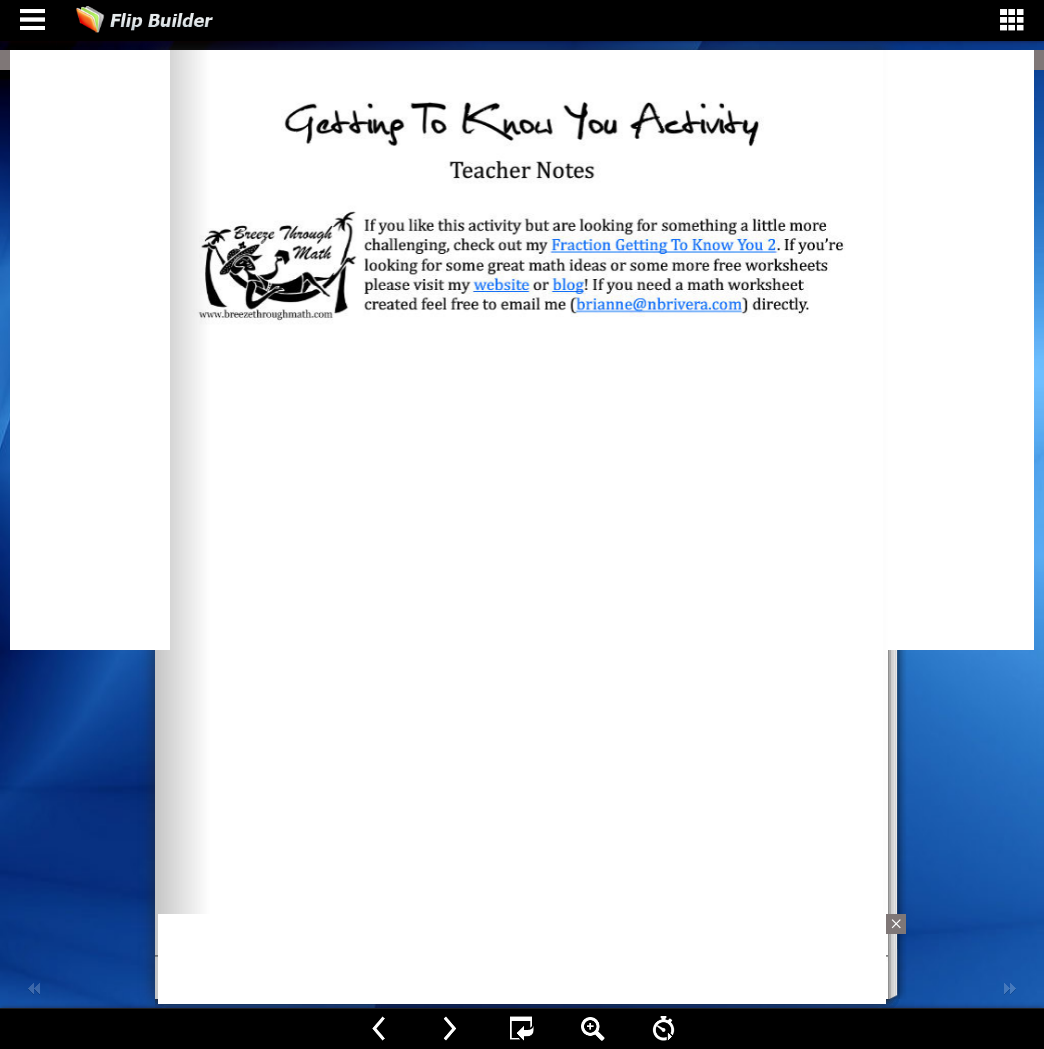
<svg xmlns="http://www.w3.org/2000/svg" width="1044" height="1049">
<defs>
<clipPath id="clip1"><rect x="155" y="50" width="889" height="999"/></clipPath>
</defs>
<rect width="100%" height="100%" fill="#fff"/>
<image x="0" y="41" width="1044" height="967" href="media/7.png"/>
<rect width="1044" height="41" fill="#28000080" filter="blur(2.5px)"/>
<rect x="155" y="50" width="734" height="949" fill="#282828b3" filter="blur(7.5px)"/>
<g clip-path="url(#clip1)">
<rect x="155" y="50" width="734" height="949" fill="#28282880" filter="blur(5px)"/>
<rect x="155" y="50" width="734" height="949" fill="#28282880" filter="blur(5px)"/>
<rect x="155" y="50" width="734" height="949" fill="#28282880" filter="blur(5px)"/>
<rect x="155" y="50" width="734" height="949" fill="#28282880" filter="blur(5px)"/>
<rect x="155" y="50" width="734" height="949" fill="#28282880" filter="blur(5px)"/>
<rect x="155" y="50" width="734" height="949" fill="#28282880" filter="blur(5px)"/>
</g>
<rect width="1044" height="41" fill="#000"/>
<image x="20" y="9" width="25" height="21" href="media/1.png"/>
<image x="76" y="6" width="137" height="27" href="media/2.png"/>
<image x="1000" y="9" width="24" height="22" href="media/3.png"/>
<image x="155" y="50" width="733" height="949" href="media/4.png"/>
<image x="888" y="650" width="18" height="299" href="media/5.png"/>
<image x="888" y="949" width="18" height="50" href="media/6.png"/>
<image x="28" y="983" width="12" height="12" href="media/8.png"/>
<image x="1004" y="983" width="12" height="12" href="media/9.png"/>
<rect y="1008" width="1044" height="41" fill="#28000080" filter="blur(2.5px)"/>
<rect y="1009" width="1044" height="40" fill="#000"/>
<rect y="1008" width="1044" height="1" fill="#1e1e1e"/>
<image x="372" y="1016" width="13" height="25" href="media/10.png"/>
<image x="443" y="1016" width="14" height="25" href="media/11.png"/>
<image x="510" y="1016" width="24" height="25" href="media/12.png"/>
<image x="581" y="1017" width="24" height="24" href="media/13.png"/>
<image x="652" y="1016" width="23" height="25" href="media/14.png"/>
<rect x="10" y="50" width="160" height="600" fill="#fff"/>
<rect y="50" width="10" height="20" fill="#7f7777"/>
<rect x="888" y="50" width="146" height="600" fill="#fff"/>
<rect x="1034" y="50" width="10" height="20" fill="#7f7777"/>
<rect x="158" y="914" width="728" height="90" fill="#fff"/>
<rect x="886" y="914" width="20" height="20" fill="#7f7777"/>
<text x="890" y="931" style="font-family:Liberation Serif;font-size:22px;fill:#fff">×</text>
</svg>
